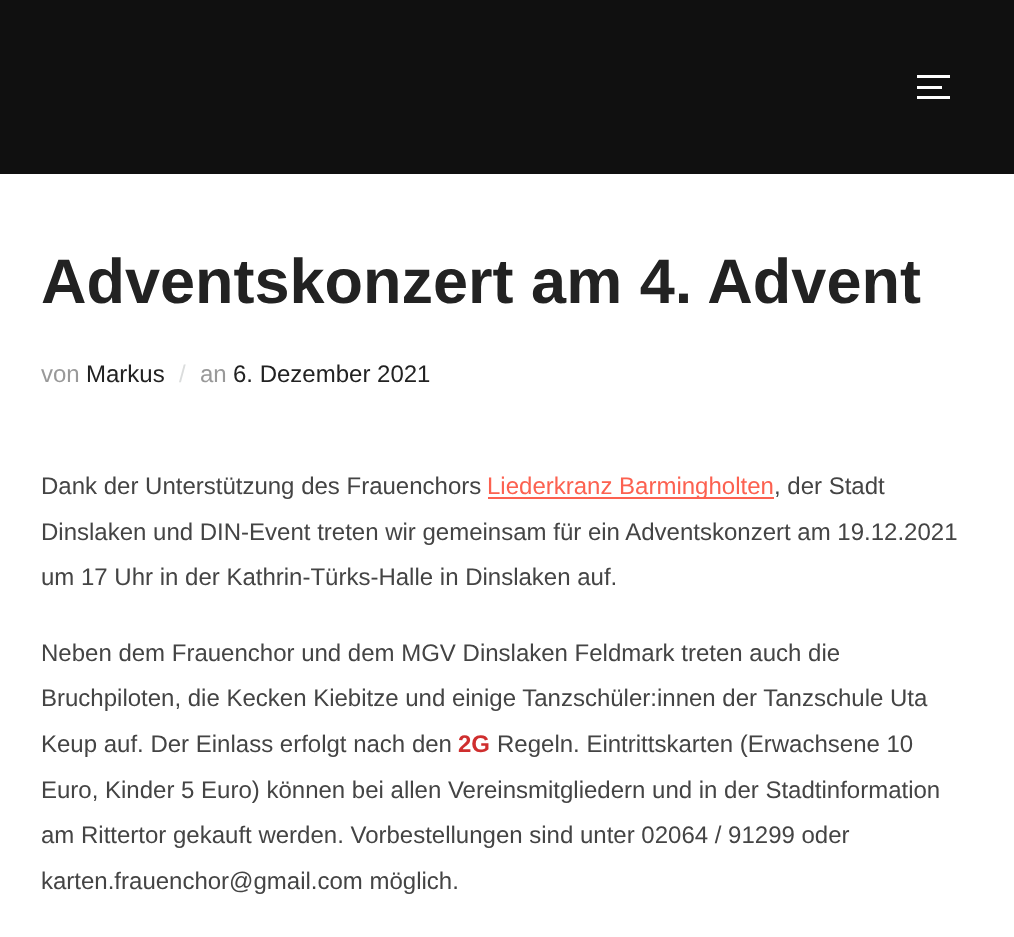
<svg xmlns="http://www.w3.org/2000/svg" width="1014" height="937">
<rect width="100%" height="100%" fill="#fff"/>
<rect width="1014" height="174" fill="#101010"/>
<rect x="917" y="75" width="33" height="3" fill="#fff"/>
<rect x="917" y="86" width="25" height="3" fill="#fff"/>
<rect x="917" y="96" width="33" height="3" fill="#fff"/>
<text x="41" y="303" style="font-family:Liberation Sans;font-size:63px;font-weight:bold;fill:#222">Adventskonzert am 4. Advent</text>
<text x="41" y="382" style="font-family:Liberation Sans;font-size:24px;fill:#999">von</text>
<text x="86" y="382" style="font-family:Liberation Sans;font-size:24px;fill:#222">Markus</text>
<text x="179" y="382" style="font-family:Liberation Sans;font-size:24px;fill:#dbdddd">/</text>
<text x="200" y="382" style="font-family:Liberation Sans;font-size:24px;fill:#999">an</text>
<text x="233" y="382" style="font-family:Liberation Sans;font-size:24px;fill:#222">6. Dezember 2021</text>
<text x="41" y="494" style="font-family:Liberation Sans;font-size:24px;fill:#444">Dank der Unterstützung des Frauenchors</text>
<rect x="488" y="497" width="286" height="2" fill="#fc6150"/>
<text x="487" y="494" style="font-family:Liberation Sans;font-size:24px;fill:#fc6150">Liederkranz Barmingholten</text>
<text x="774" y="494" style="font-family:Liberation Sans;font-size:24px;fill:#444">, der Stadt</text>
<text x="41" y="540" style="font-family:Liberation Sans;font-size:24px;fill:#444">Dinslaken und DIN-Event treten wir gemeinsam für ein Adventskonzert am 19.12.2021</text>
<text x="41" y="585" style="font-family:Liberation Sans;font-size:24px;fill:#444">um 17 Uhr in der Kathrin-Türks-Halle in Dinslaken auf.</text>
<text x="41" y="661" style="font-family:Liberation Sans;font-size:24px;fill:#444">Neben dem Frauenchor und dem MGV Dinslaken Feldmark treten auch die</text>
<text x="41" y="706" style="font-family:Liberation Sans;font-size:24px;fill:#444">Bruchpiloten, die Kecken Kiebitze und einige Tanzschüler:innen der Tanzschule Uta</text>
<text x="41" y="752" style="font-family:Liberation Sans;font-size:24px;fill:#444">Keup auf. Der Einlass erfolgt nach den</text>
<text x="458" y="752" style="font-family:Liberation Sans;font-size:24px;font-weight:bold;fill:#cf2e2e">2G</text>
<text x="497" y="752" style="font-family:Liberation Sans;font-size:24px;fill:#444">Regeln. Eintrittskarten (Erwachsene 10</text>
<text x="41" y="798" style="font-family:Liberation Sans;font-size:24px;fill:#444">Euro, Kinder 5 Euro) können bei allen Vereinsmitgliedern und in der Stadtinformation</text>
<text x="41" y="843" style="font-family:Liberation Sans;font-size:24px;fill:#444">am Rittertor gekauft werden. Vorbestellungen sind unter 02064 / 91299 oder</text>
<text x="41" y="889" style="font-family:Liberation Sans;font-size:24px;fill:#444">karten.frauenchor@gmail.com möglich.</text>
</svg>
